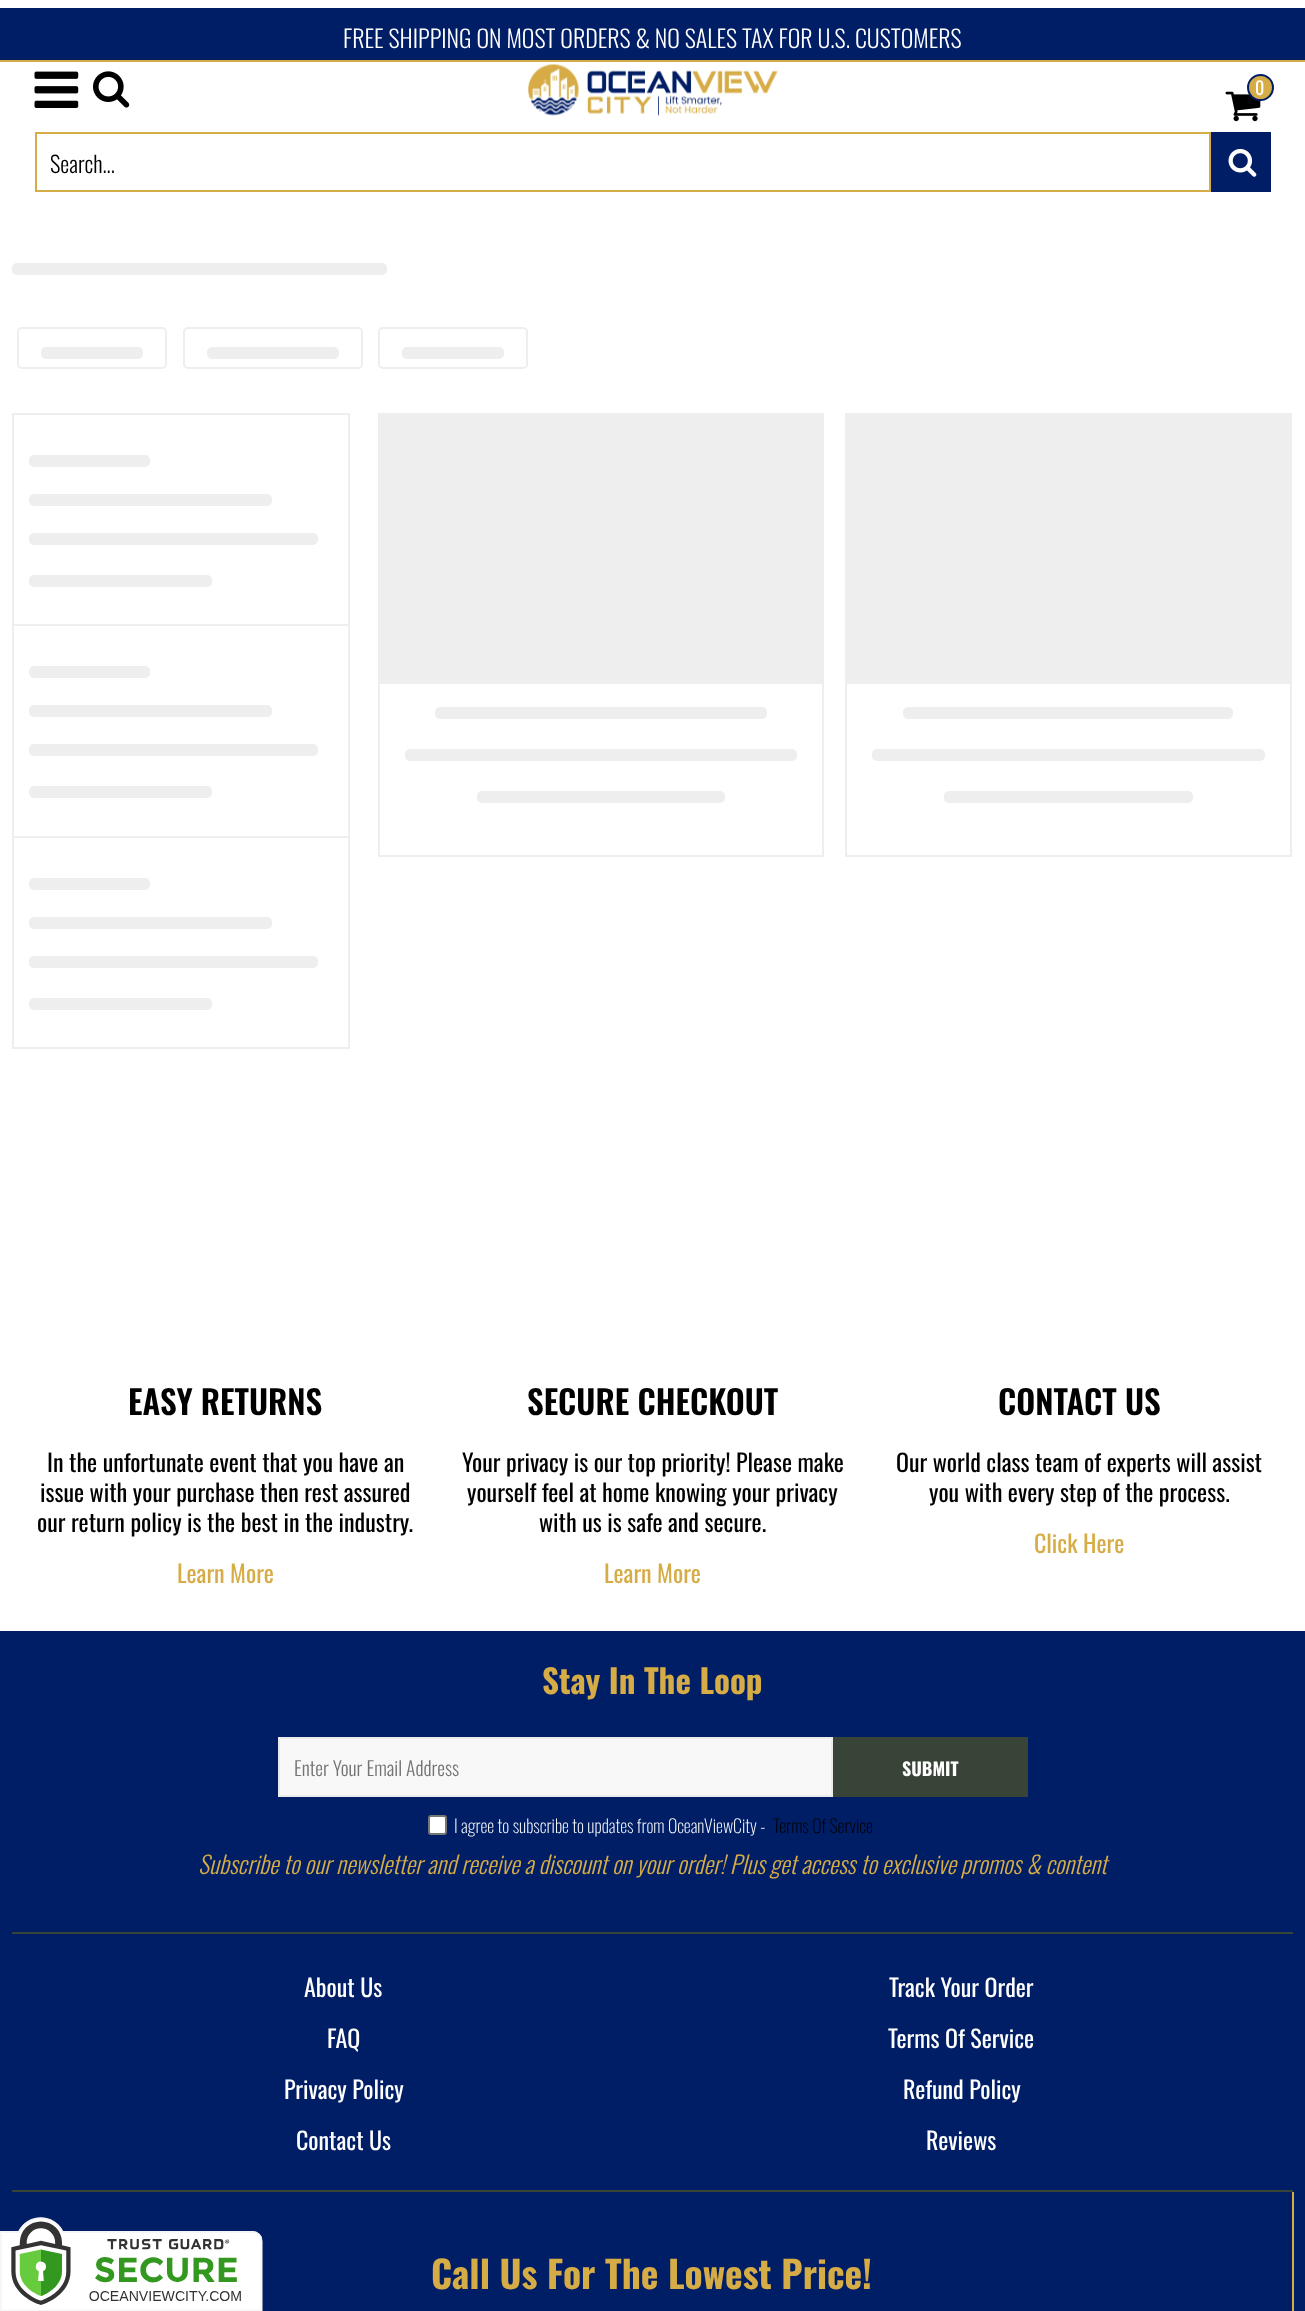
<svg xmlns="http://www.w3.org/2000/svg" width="1305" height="2311">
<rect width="100%" height="100%" fill="#fff"/>
<rect y="8" width="1305" height="52" fill="#001e65"/>
<rect y="60" width="1305" height="2" fill="#d6ac46"/>
<text x="343" y="48" style="font-family:Oswald;font-size:24px;font-weight:300;fill:#fff">FREE SHIPPING ON MOST ORDERS &amp; NO SALES TAX FOR U.S. CUSTOMERS</text>
<image x="34" y="71" width="45" height="37" href="media/1.png"/>
<image x="93" y="71" width="37" height="37" href="media/2.png"/>
<image x="528" y="64" width="250" height="52" href="media/3.png"/>
<image x="1225" y="91" width="36" height="31" href="media/4.png"/>
<circle cx="1260.5" cy="87.5" r="12.5" fill="#d6ac46" stroke="#001e65" stroke-width="2"/>
<text x="1255" y="95" style="font-family:Oswald;font-size:18px;fill:#fff">0</text>
<rect x="36" y="133" width="1174" height="58" fill="none" stroke="#d6ac46" stroke-width="2"/>
<text x="50" y="173" style="font-family:Oswald;font-size:22.5px;font-weight:300;fill:#000">Search...</text>
<rect x="1211" y="132" width="60" height="60" fill="#001e65"/>
<image x="1228" y="148" width="29" height="29" href="media/5.png"/>
<rect x="12" y="263" width="375" height="12" rx="5" fill="#eee"/>
<rect x="18" y="328" width="148" height="40" rx="4" fill="none" stroke="#eee" stroke-width="2"/>
<rect x="41" y="347" width="102" height="12" rx="5" fill="#eee"/>
<rect x="184" y="328" width="178" height="40" rx="4" fill="none" stroke="#eee" stroke-width="2"/>
<rect x="207" y="347" width="132" height="12" rx="5" fill="#eee"/>
<rect x="379" y="328" width="148" height="40" rx="4" fill="none" stroke="#eee" stroke-width="2"/>
<rect x="402" y="347" width="102" height="12" rx="5" fill="#eee"/>
<rect x="12" y="413" width="338" height="2" fill="#eee"/>
<rect x="348" y="413" width="2" height="211" fill="#eee"/>
<rect x="12" y="413" width="2" height="211" fill="#eee"/>
<rect x="29" y="455" width="121" height="12" rx="5" fill="#eee"/>
<rect x="29" y="494" width="243" height="12" rx="5" fill="#eee"/>
<rect x="29" y="533" width="289" height="12" rx="5" fill="#eee"/>
<rect x="29" y="575" width="183" height="12" rx="5" fill="#eee"/>
<rect x="12" y="624" width="338" height="2" fill="#eee"/>
<rect x="348" y="624" width="2" height="212" fill="#eee"/>
<rect x="12" y="624" width="2" height="212" fill="#eee"/>
<rect x="29" y="666" width="121" height="12" rx="5" fill="#eee"/>
<rect x="29" y="705" width="243" height="12" rx="5" fill="#eee"/>
<rect x="29" y="744" width="289" height="12" rx="5" fill="#eee"/>
<rect x="29" y="786" width="183" height="12" rx="5" fill="#eee"/>
<rect x="13" y="837" width="336" height="211" fill="none" stroke="#eee" stroke-width="2"/>
<rect x="29" y="878" width="121" height="12" rx="5" fill="#eee"/>
<rect x="29" y="917" width="243" height="12" rx="5" fill="#eee"/>
<rect x="29" y="956" width="289" height="12" rx="5" fill="#eee"/>
<rect x="29" y="998" width="183" height="12" rx="5" fill="#eee"/>
<rect x="379" y="414" width="444" height="442" fill="none" stroke="#eee" stroke-width="2"/>
<rect x="380" y="415" width="442" height="269" fill="#eee"/>
<rect x="435" y="707" width="332" height="12" rx="5" fill="#eee"/>
<rect x="405" y="749" width="392" height="12" rx="5" fill="#eee"/>
<rect x="477" y="791" width="248" height="12" rx="5" fill="#eee"/>
<rect x="846" y="414" width="445" height="442" fill="none" stroke="#eee" stroke-width="2"/>
<rect x="847" y="415" width="443" height="269" fill="#eee"/>
<rect x="903" y="707" width="330" height="12" rx="5" fill="#eee"/>
<rect x="872" y="749" width="393" height="12" rx="5" fill="#eee"/>
<rect x="944" y="791" width="249" height="12" rx="5" fill="#eee"/>
<text x="128" y="1415" style="font-family:Oswald;font-size:33px;font-weight:600;fill:#000">EASY RETURNS</text>
<text x="47" y="1472" style="font-family:Oswald;font-size:24px;fill:#000">In the unfortunate event that you have an</text>
<text x="40" y="1502" style="font-family:Oswald;font-size:24px;fill:#000">issue with your purchase then rest assured</text>
<text x="37" y="1532" style="font-family:Oswald;font-size:24px;fill:#000">our return policy is the best in the industry.</text>
<text x="177" y="1583" style="font-family:Oswald;font-size:24px;fill:#d6ac46">Learn More</text>
<text x="527" y="1415" style="font-family:Oswald;font-size:33px;font-weight:600;fill:#000">SECURE CHECKOUT</text>
<text x="462" y="1472" style="font-family:Oswald;font-size:24px;fill:#000">Your privacy is our top priority! Please make</text>
<text x="467" y="1502" style="font-family:Oswald;font-size:24px;fill:#000">yourself feel at home knowing your privacy</text>
<text x="539" y="1532" style="font-family:Oswald;font-size:24px;fill:#000">with us is safe and secure.</text>
<text x="604" y="1583" style="font-family:Oswald;font-size:24px;fill:#d6ac46">Learn More</text>
<text x="998" y="1415" style="font-family:Oswald;font-size:33px;font-weight:600;fill:#000">CONTACT US</text>
<text x="896" y="1472" style="font-family:Oswald;font-size:24px;fill:#000">Our world class team of experts will assist</text>
<text x="929" y="1502" style="font-family:Oswald;font-size:24px;fill:#000">you with every step of the process.</text>
<text x="1034" y="1553" style="font-family:Oswald;font-size:24px;fill:#d6ac46">Click Here</text>
<rect y="1631" width="1305" height="680" fill="#001e65"/>
<text x="542" y="1694" style="font-family:Oswald;font-size:33px;font-weight:bold;fill:#d6ac46">Stay In The Loop</text>
<rect x="279" y="1738" width="553" height="58" fill="#f8f8f8" stroke="#ebebeb" stroke-width="2"/>
<text x="294" y="1776" style="font-family:Oswald;font-size:19.5px;font-weight:300;fill:#757575">Enter Your Email Address</text>
<rect x="833" y="1737" width="195" height="60" fill="#394439"/>
<text x="902" y="1776" style="font-family:Oswald;font-size:18px;font-weight:bold;fill:#fff">SUBMIT</text>
<rect x="429" y="1816" width="17" height="18" rx="2" fill="#fff" stroke="#767676" stroke-width="2"/>
<text x="454" y="1833" style="font-family:Oswald;font-size:18px;font-weight:200;fill:#fff">I agree to subscribe to updates from OceanViewCity -</text>
<text x="773" y="1833" style="font-family:Oswald;font-size:18px;font-weight:200;fill:#000">Terms Of Service</text>
<text x="198" y="1874" style="font-family:Oswald;font-size:24px;font-weight:300;font-style:italic;fill:#d6ac46">Subscribe to our newsletter and receive a discount on your order! Plus get access to exclusive promos &amp; content</text>
<rect x="12" y="1932" width="1281" height="2" fill="#394439"/>
<rect x="12" y="2190" width="1281" height="2" fill="#394439"/>
<text x="304" y="1997" style="font-family:Oswald;font-size:24px;fill:#fff">About Us</text>
<text x="889" y="1997" style="font-family:Oswald;font-size:24px;fill:#fff">Track Your Order</text>
<text x="327" y="2048" style="font-family:Oswald;font-size:24px;fill:#fff">FAQ</text>
<text x="888" y="2048" style="font-family:Oswald;font-size:24px;fill:#fff">Terms Of Service</text>
<text x="284" y="2099" style="font-family:Oswald;font-size:24px;fill:#fff">Privacy Policy</text>
<text x="903" y="2099" style="font-family:Oswald;font-size:24px;fill:#fff">Refund Policy</text>
<text x="296" y="2150" style="font-family:Oswald;font-size:24px;fill:#fff">Contact Us</text>
<text x="926" y="2150" style="font-family:Oswald;font-size:24px;fill:#fff">Reviews</text>
<rect x="1292" y="2192" width="2" height="119" fill="#d6ac46"/>
<text x="431" y="2289" style="font-family:Oswald;font-size:37.5px;font-weight:bold;fill:#d6ac46">Call Us For The Lowest Price!</text>
<image x="0" y="2217" width="263" height="94" href="media/6.png"/>
</svg>
